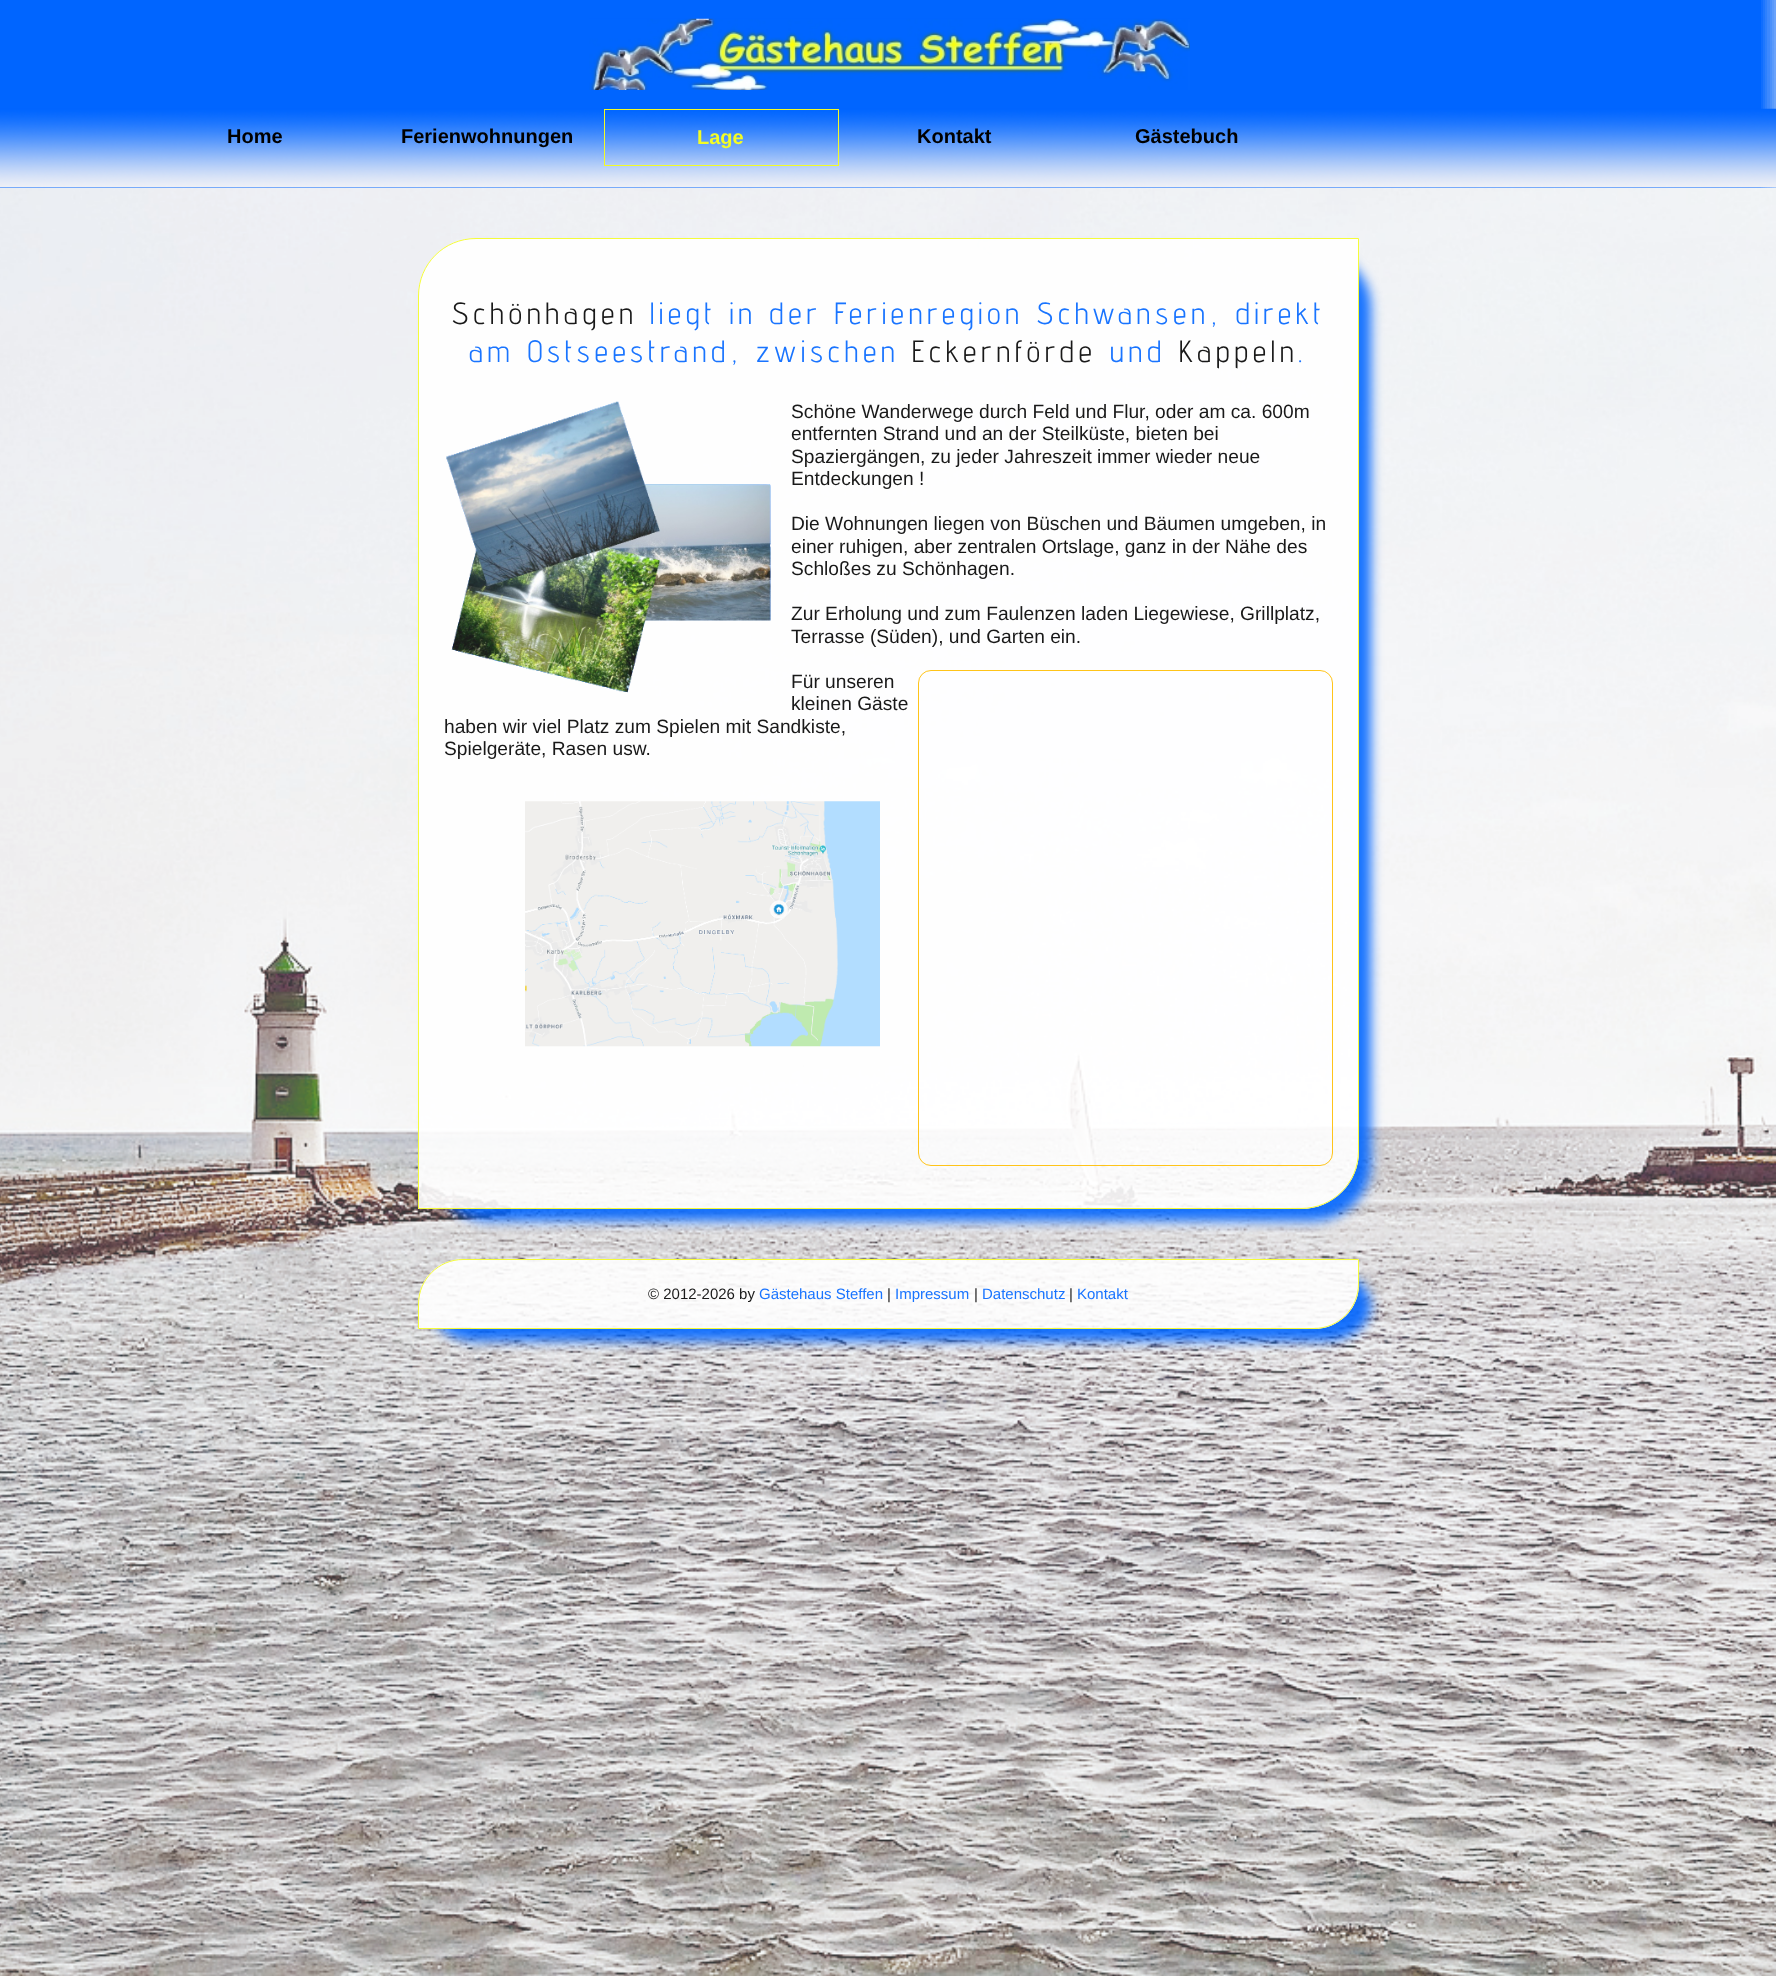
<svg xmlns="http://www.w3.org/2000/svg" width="1776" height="1976">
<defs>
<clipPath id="clip1"><path d="M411 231h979v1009h-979zm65 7h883v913c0 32-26 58-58 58h-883v-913c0-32 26-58 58-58z" clip-rule="evenodd"/></clipPath>
<clipPath id="clip2"><path d="M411 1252h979v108h-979zm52 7h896v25c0 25-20 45-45 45h-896v-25c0-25 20-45 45-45z" clip-rule="evenodd"/></clipPath>
</defs>
<rect width="100%" height="100%" fill="#fff"/>
<image x="0" y="0" width="1776" height="1976" href="media/1.png"/>
<image x="0" y="0" width="1776" height="188" href="media/2.png"/>
<image x="589" y="18" width="601" height="72" href="media/3.png"/>
<image x="0" y="108" width="1776" height="80" href="media/4.png"/>
<text x="227" y="143" style="font-family:Liberation Sans;font-size:20px;font-weight:bold;fill:#000">Home</text>
<text x="401" y="143" style="font-family:Liberation Sans;font-size:20px;font-weight:bold;fill:#000">Ferienwohnungen</text>
<rect x="604.5" y="109.5" width="234" height="56" fill="none" stroke="#f3fc25"/>
<text x="697" y="144" style="font-family:Liberation Sans;font-size:20px;font-weight:bold;fill:#f3fc25">Lage</text>
<text x="917" y="143" style="font-family:Liberation Sans;font-size:20px;font-weight:bold;fill:#000">Kontakt</text>
<text x="1135" y="143" style="font-family:Liberation Sans;font-size:20px;font-weight:bold;fill:#000">Gästebuch</text>
<g clip-path="url(#clip1)">
<rect x="430" y="250" width="941" height="971" rx="58" fill="#0065ffe6" filter="blur(6px)"/>
</g>
<path d="M476 238h883v913c0 32-26 58-58 58h-883v-913c0-32 26-58 58-58z" fill="#ffffffe6"/>
<path d="M476 238.5h882.5v912.5c0 32-25.5 57.5-57.5 57.5h-882.5v-912.5c0-32 25.5-57.5 57.5-57.5z" fill="none" stroke="#f3fc25e6"/>
<text x="452" y="324" style="font-family:Advent Pro;font-size:30.7px;letter-spacing:4.6px;fill:#191919">Schönhagen</text>
<text x="650" y="324" style="font-family:Advent Pro;font-size:30.7px;letter-spacing:4.6px;fill:#1974ff">liegt in der Ferienregion Schwansen, direkt</text>
<text x="469" y="362" style="font-family:Advent Pro;font-size:30.7px;letter-spacing:4.6px;fill:#1974ff">am Ostseestrand, zwischen</text>
<text x="912" y="362" style="font-family:Advent Pro;font-size:30.7px;letter-spacing:4.6px;fill:#191919">Eckernförde</text>
<text x="1110" y="362" style="font-family:Advent Pro;font-size:30.7px;letter-spacing:4.6px;fill:#1974ff">und</text>
<text x="1179" y="362" style="font-family:Advent Pro;font-size:30.7px;letter-spacing:4.6px;fill:#191919">Kappeln</text>
<text x="1298" y="362" style="font-family:Advent Pro;font-size:30.7px;letter-spacing:4.6px;fill:#1974ff">.</text>
<image x="446" y="401" width="325" height="292" href="media/5.png"/>
<text x="791" y="418" style="font-family:Liberation Sans;font-size:19.2px;fill:#191919">Schöne Wanderwege durch Feld und Flur, oder am ca. 600m</text>
<text x="791" y="440" style="font-family:Liberation Sans;font-size:19.2px;fill:#191919">entfernten Strand und an der Steilküste, bieten bei</text>
<text x="791" y="463" style="font-family:Liberation Sans;font-size:19.2px;fill:#191919">Spaziergängen, zu jeder Jahreszeit immer wieder neue</text>
<text x="791" y="485" style="font-family:Liberation Sans;font-size:19.2px;fill:#191919">Entdeckungen !</text>
<text x="791" y="530" style="font-family:Liberation Sans;font-size:19.2px;fill:#191919">Die Wohnungen liegen von Büschen und Bäumen umgeben, in</text>
<text x="791" y="553" style="font-family:Liberation Sans;font-size:19.2px;fill:#191919">einer</text>
<text x="839" y="553" style="font-family:Liberation Sans;font-size:19.2px;fill:#191919">ruhigen, aber zentralen Ortslage, ganz in der Nähe des</text>
<text x="791" y="575" style="font-family:Liberation Sans;font-size:19.2px;fill:#191919">Schloßes zu Schönhagen.</text>
<text x="791" y="620" style="font-family:Liberation Sans;font-size:19.2px;fill:#191919">Zur Erholung und zum Faulenzen laden Liegewiese, Grillplatz,</text>
<text x="791" y="643" style="font-family:Liberation Sans;font-size:19.2px;fill:#191919">Terrasse (Süden), und Garten ein.</text>
<text x="791" y="688" style="font-family:Liberation Sans;font-size:19.2px;fill:#191919">Für unseren</text>
<rect x="918.5" y="670.5" width="414" height="495" rx="12.5" fill="none" stroke="#ffbe00e6"/>
<text x="791" y="710" style="font-family:Liberation Sans;font-size:19.2px;fill:#191919">kleinen Gäste</text>
<text x="444" y="733" style="font-family:Liberation Sans;font-size:19.2px;fill:#191919">haben wir viel Platz zum Spielen mit Sandkiste,</text>
<text x="444" y="755" style="font-family:Liberation Sans;font-size:19.2px;fill:#191919">Spielgeräte, Rasen usw.</text>
<image x="525" y="801" width="355" height="246" href="media/6.png"/>
<g clip-path="url(#clip2)">
<rect x="430" y="1271" width="941" height="70" rx="45" fill="#0065ffe6" filter="blur(6px)"/>
</g>
<path d="M463 1259h896v25c0 25-20 45-45 45h-896v-25c0-25 20-45 45-45z" fill="#ffffffe6"/>
<path d="M463 1259.5h895.5v24.5c0 24.5-20 44.5-44.5 44.5h-895.5v-24.5c0-24.5 20-44.5 44.5-44.5z" fill="none" stroke="#f3fc25e6"/>
<text x="648" y="1299" style="font-family:Liberation Sans;font-size:15px;fill:#191919">© 2012-2026 by</text>
<text x="759" y="1299" style="font-family:Liberation Sans;font-size:15px;fill:#1974ff">Gästehaus Steffen</text>
<text x="887" y="1299" style="font-family:Liberation Sans;font-size:15px;fill:#191919">|</text>
<text x="895" y="1299" style="font-family:Liberation Sans;font-size:15px;fill:#1974ff">Impressum</text>
<text x="974" y="1299" style="font-family:Liberation Sans;font-size:15px;fill:#191919">|</text>
<text x="982" y="1299" style="font-family:Liberation Sans;font-size:15px;fill:#1974ff">Datenschutz</text>
<text x="1069" y="1299" style="font-family:Liberation Sans;font-size:15px;fill:#191919">|</text>
<text x="1077" y="1299" style="font-family:Liberation Sans;font-size:15px;fill:#1974ff">Kontakt</text>
</svg>
